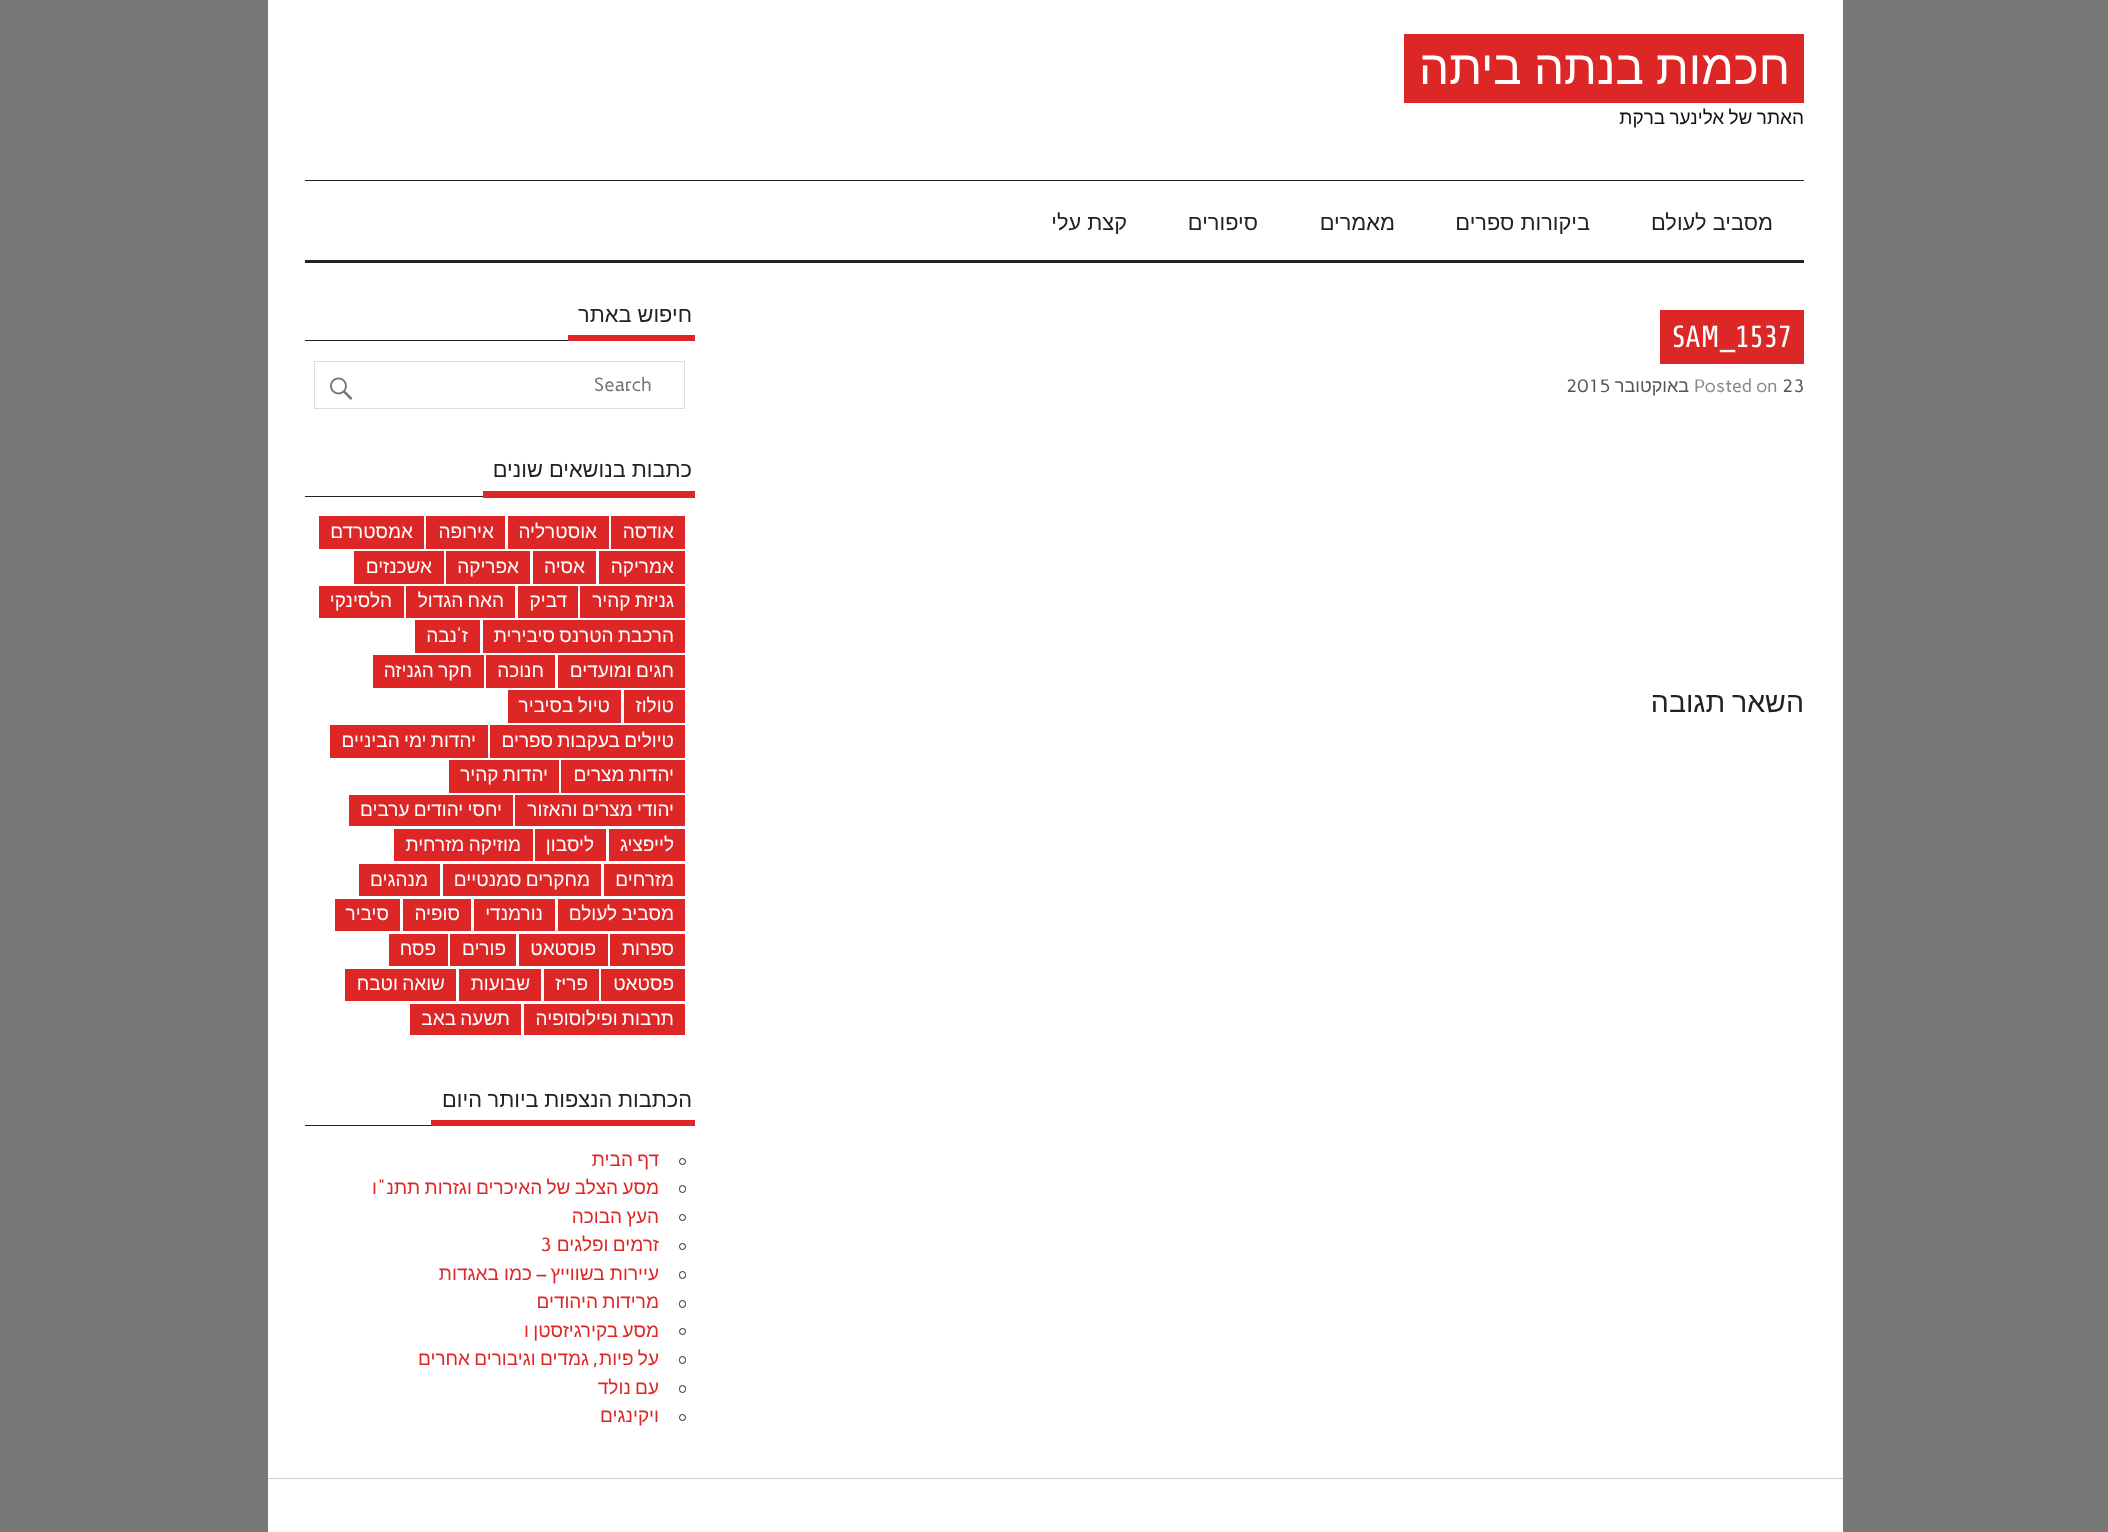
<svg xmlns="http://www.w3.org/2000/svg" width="2108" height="1532">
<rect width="100%" height="100%" fill="#777"/>
<rect x="268" width="1575" height="1532" fill="#fff"/>
<rect x="1404" y="34" width="400" height="69" fill="#dd2727"/>
<text x="1790" y="84" word-spacing="-1" style="font-family:Liberation Sans;font-size:47.5px;direction:rtl;fill:#fff">חכמות בנתה ביתה</text>
<text x="1804" y="124" word-spacing="-1" style="font-family:Liberation Sans;font-size:19px;direction:rtl;fill:#111">האתר של אלינער ברקת</text>
<rect x="305" y="180" width="1499" height="1" fill="#222"/>
<rect x="305" y="260" width="1499" height="3" fill="#222"/>
<text x="1773" y="230" style="font-family:Liberation Sans;font-size:21.8px;direction:rtl;fill:#222">מסביב לעולם</text>
<text x="1590" y="230" style="font-family:Liberation Sans;font-size:21.8px;direction:rtl;fill:#222">ביקורות ספרים</text>
<text x="1395" y="230" style="font-family:Liberation Sans;font-size:21.8px;direction:rtl;fill:#222">מאמרים</text>
<text x="1258" y="230" style="font-family:Liberation Sans;font-size:21.8px;direction:rtl;fill:#222">סיפורים</text>
<text x="1127" y="230" style="font-family:Liberation Sans;font-size:21.8px;direction:rtl;fill:#222">קצת עלי</text>
<rect x="1660" y="310" width="144" height="54" fill="#dd2727"/>
<text x="1672" y="347" style="font-family:Share;font-size:30.5px;fill:#fff">SAM_1537</text>
<text x="1782" y="392" style="font-family:Carme;font-size:18px;fill:#555">23</text>
<text x="1694" y="392" style="font-family:Carme;font-size:18px;fill:#888">Posted on</text>
<text x="1689" y="392" style="font-family:Liberation Sans;font-size:18px;direction:rtl;fill:#555">באוקטובר</text>
<text x="1566" y="392" style="font-family:Carme;font-size:18px;fill:#555">2015</text>
<text x="1804" y="712" word-spacing="-1" style="font-family:Liberation Sans;font-size:28.5px;direction:rtl;fill:#222">השאר תגובה</text>
<rect x="305" y="340" width="263" height="1" fill="#222"/>
<rect x="568" y="335" width="127" height="6" fill="#dd2727"/>
<text x="692" y="322" style="font-family:Liberation Sans;font-size:21.8px;direction:rtl;fill:#222">חיפוש באתר</text>
<rect x="314.5" y="361.5" width="370" height="47" fill="none" stroke="#ddd"/>
<text x="594" y="391" style="font-family:Carme;font-size:19px;fill:#757575">Search</text>
<text x="615" y="391" style="font-family:Carme;font-size:19px;fill:#757575">…</text>
<image x="330" y="377" width="23" height="23" href="media/1.png"/>
<rect x="305" y="496" width="178" height="1" fill="#222"/>
<rect x="483" y="491" width="212" height="7" fill="#dd2727"/>
<text x="692" y="477" style="font-family:Liberation Sans;font-size:21.8px;direction:rtl;fill:#222">כתבות בנושאים שונים</text>
<rect x="611" y="516" width="74" height="33" fill="#dd2727"/>
<text x="674" y="538" style="font-family:Liberation Sans;font-size:19px;direction:rtl;fill:#fff">אודסה</text>
<rect x="508" y="516" width="101" height="33" fill="#dd2727"/>
<text x="597" y="538" style="font-family:Liberation Sans;font-size:19px;direction:rtl;fill:#fff">אוסטרליה</text>
<rect x="426" y="516" width="79" height="33" fill="#dd2727"/>
<text x="494" y="538" style="font-family:Liberation Sans;font-size:19px;direction:rtl;fill:#fff">אירופה</text>
<rect x="319" y="516" width="105" height="33" fill="#dd2727"/>
<text x="413" y="538" style="font-family:Liberation Sans;font-size:19px;direction:rtl;fill:#fff">אמסטרדם</text>
<rect x="599" y="551" width="86" height="33" fill="#dd2727"/>
<text x="674" y="573" style="font-family:Liberation Sans;font-size:19px;direction:rtl;fill:#fff">אמריקה</text>
<rect x="533" y="551" width="63" height="33" fill="#dd2727"/>
<text x="585" y="573" style="font-family:Liberation Sans;font-size:19px;direction:rtl;fill:#fff">אסיה</text>
<rect x="446" y="551" width="84" height="33" fill="#dd2727"/>
<text x="519" y="573" style="font-family:Liberation Sans;font-size:19px;direction:rtl;fill:#fff">אפריקה</text>
<rect x="354" y="551" width="90" height="33" fill="#dd2727"/>
<text x="432" y="573" style="font-family:Liberation Sans;font-size:19px;direction:rtl;fill:#fff">אשכנזים</text>
<rect x="580" y="586" width="105" height="32" fill="#dd2727"/>
<text x="674" y="607" word-spacing="-1" style="font-family:Liberation Sans;font-size:19px;direction:rtl;fill:#fff">גניזת קהיר</text>
<rect x="518" y="586" width="60" height="32" fill="#dd2727"/>
<text x="567" y="607" style="font-family:Liberation Sans;font-size:19px;direction:rtl;fill:#fff">דביק</text>
<rect x="406" y="586" width="109" height="32" fill="#dd2727"/>
<text x="504" y="607" word-spacing="-1" style="font-family:Liberation Sans;font-size:19px;direction:rtl;fill:#fff">האח הגדול</text>
<rect x="319" y="586" width="85" height="32" fill="#dd2727"/>
<text x="392" y="607" style="font-family:Liberation Sans;font-size:19px;direction:rtl;fill:#fff">הלסינקי</text>
<rect x="483" y="620" width="202" height="33" fill="#dd2727"/>
<text x="674" y="642" word-spacing="-1" style="font-family:Liberation Sans;font-size:19px;direction:rtl;fill:#fff">הרכבת הטרנס סיבירית</text>
<rect x="415" y="620" width="65" height="33" fill="#dd2727"/>
<text x="462" y="642" style="font-family:Carme;font-size:19px;direction:rtl;fill:#fff">'</text>
<text x="468" y="642" style="font-family:Liberation Sans;font-size:19px;direction:rtl;fill:#fff">ז</text>
<text x="457" y="642" style="font-family:Liberation Sans;font-size:19px;direction:rtl;fill:#fff">נבה</text>
<rect x="558" y="655" width="127" height="33" fill="#dd2727"/>
<text x="674" y="677" word-spacing="-1" style="font-family:Liberation Sans;font-size:19px;direction:rtl;fill:#fff">חגים ומועדים</text>
<rect x="486" y="655" width="69" height="33" fill="#dd2727"/>
<text x="544" y="677" style="font-family:Liberation Sans;font-size:19px;direction:rtl;fill:#fff">חנוכה</text>
<rect x="373" y="655" width="111" height="33" fill="#dd2727"/>
<text x="472" y="677" word-spacing="-1" style="font-family:Liberation Sans;font-size:19px;direction:rtl;fill:#fff">חקר הגניזה</text>
<rect x="624" y="690" width="61" height="33" fill="#dd2727"/>
<text x="674" y="712" style="font-family:Liberation Sans;font-size:19px;direction:rtl;fill:#fff">טולוז</text>
<rect x="508" y="690" width="113" height="33" fill="#dd2727"/>
<text x="610" y="712" word-spacing="-1" style="font-family:Liberation Sans;font-size:19px;direction:rtl;fill:#fff">טיול בסיביר</text>
<rect x="490" y="725" width="195" height="33" fill="#dd2727"/>
<text x="674" y="747" word-spacing="-1" style="font-family:Liberation Sans;font-size:19px;direction:rtl;fill:#fff">טיולים בעקבות ספרים</text>
<rect x="330" y="725" width="158" height="33" fill="#dd2727"/>
<text x="476" y="747" word-spacing="-1" style="font-family:Liberation Sans;font-size:19px;direction:rtl;fill:#fff">יהדות ימי הביניים</text>
<rect x="561" y="760" width="124" height="33" fill="#dd2727"/>
<text x="674" y="781" word-spacing="-1" style="font-family:Liberation Sans;font-size:19px;direction:rtl;fill:#fff">יהדות מצרים</text>
<rect x="449" y="760" width="110" height="33" fill="#dd2727"/>
<text x="548" y="781" word-spacing="-1" style="font-family:Liberation Sans;font-size:19px;direction:rtl;fill:#fff">יהדות קהיר</text>
<rect x="515" y="795" width="170" height="31" fill="#dd2727"/>
<text x="674" y="816" word-spacing="-1" style="font-family:Liberation Sans;font-size:19px;direction:rtl;fill:#fff">יהודי מצרים והאזור</text>
<rect x="349" y="795" width="164" height="31" fill="#dd2727"/>
<text x="502" y="816" word-spacing="-1" style="font-family:Liberation Sans;font-size:19px;direction:rtl;fill:#fff">יחסי יהודים ערבים</text>
<rect x="609" y="829" width="76" height="32" fill="#dd2727"/>
<text x="674" y="851" style="font-family:Liberation Sans;font-size:19px;direction:rtl;fill:#fff">לייפציג</text>
<rect x="535" y="829" width="71" height="32" fill="#dd2727"/>
<text x="594" y="851" style="font-family:Liberation Sans;font-size:19px;direction:rtl;fill:#fff">ליסבון</text>
<rect x="394" y="829" width="139" height="32" fill="#dd2727"/>
<text x="521" y="851" word-spacing="-1" style="font-family:Liberation Sans;font-size:19px;direction:rtl;fill:#fff">מוזיקה מזרחית</text>
<rect x="604" y="864" width="81" height="32" fill="#dd2727"/>
<text x="674" y="886" style="font-family:Liberation Sans;font-size:19px;direction:rtl;fill:#fff">מזרחים</text>
<rect x="443" y="864" width="158" height="32" fill="#dd2727"/>
<text x="590" y="886" word-spacing="-1" style="font-family:Liberation Sans;font-size:19px;direction:rtl;fill:#fff">מחקרים סמנטיים</text>
<rect x="359" y="864" width="81" height="32" fill="#dd2727"/>
<text x="428" y="886" style="font-family:Liberation Sans;font-size:19px;direction:rtl;fill:#fff">מנהגים</text>
<rect x="558" y="899" width="127" height="32" fill="#dd2727"/>
<text x="674" y="920" word-spacing="-1" style="font-family:Liberation Sans;font-size:19px;direction:rtl;fill:#fff">מסביב לעולם</text>
<rect x="474" y="899" width="81" height="32" fill="#dd2727"/>
<text x="543" y="920" style="font-family:Liberation Sans;font-size:19px;direction:rtl;fill:#fff">נורמנדי</text>
<rect x="403" y="899" width="68" height="32" fill="#dd2727"/>
<text x="460" y="920" style="font-family:Liberation Sans;font-size:19px;direction:rtl;fill:#fff">סופיה</text>
<rect x="335" y="899" width="65" height="32" fill="#dd2727"/>
<text x="389" y="920" style="font-family:Liberation Sans;font-size:19px;direction:rtl;fill:#fff">סיביר</text>
<rect x="610" y="934" width="75" height="32" fill="#dd2727"/>
<text x="674" y="955" style="font-family:Liberation Sans;font-size:19px;direction:rtl;fill:#fff">ספרות</text>
<rect x="519" y="934" width="89" height="32" fill="#dd2727"/>
<text x="596" y="955" style="font-family:Liberation Sans;font-size:19px;direction:rtl;fill:#fff">פוסטאט</text>
<rect x="450" y="934" width="66" height="32" fill="#dd2727"/>
<text x="506" y="955" style="font-family:Liberation Sans;font-size:19px;direction:rtl;fill:#fff">פורים</text>
<rect x="389" y="934" width="59" height="32" fill="#dd2727"/>
<text x="436" y="955" style="font-family:Liberation Sans;font-size:19px;direction:rtl;fill:#fff">פסח</text>
<rect x="601" y="969" width="84" height="32" fill="#dd2727"/>
<text x="674" y="990" style="font-family:Liberation Sans;font-size:19px;direction:rtl;fill:#fff">פסטאט</text>
<rect x="544" y="969" width="55" height="32" fill="#dd2727"/>
<text x="588" y="990" style="font-family:Liberation Sans;font-size:19px;direction:rtl;fill:#fff">פריז</text>
<rect x="459" y="969" width="82" height="32" fill="#dd2727"/>
<text x="530" y="990" style="font-family:Liberation Sans;font-size:19px;direction:rtl;fill:#fff">שבועות</text>
<rect x="345" y="969" width="111" height="32" fill="#dd2727"/>
<text x="445" y="990" word-spacing="-1" style="font-family:Liberation Sans;font-size:19px;direction:rtl;fill:#fff">שואה וטבח</text>
<rect x="524" y="1004" width="161" height="31" fill="#dd2727"/>
<text x="674" y="1025" word-spacing="-1" style="font-family:Liberation Sans;font-size:19px;direction:rtl;fill:#fff">תרבות ופילוסופיה</text>
<rect x="410" y="1004" width="111" height="31" fill="#dd2727"/>
<text x="510" y="1025" word-spacing="-1" style="font-family:Liberation Sans;font-size:19px;direction:rtl;fill:#fff">תשעה באב</text>
<rect x="305" y="1125" width="126" height="1" fill="#222"/>
<rect x="431" y="1120" width="264" height="6" fill="#dd2727"/>
<text x="692" y="1107" word-spacing="-0.5" style="font-family:Liberation Sans;font-size:21.8px;direction:rtl;fill:#222">הכתבות הנצפות ביותר היום</text>
<circle cx="682.5" cy="1161.5" r="3" fill="none" stroke="#222"/>
<text x="659" y="1166" word-spacing="-1" style="font-family:Liberation Sans;font-size:19px;direction:rtl;fill:#dd2727">דף הבית</text>
<text x="659" y="1194" word-spacing="-1" style="font-family:Liberation Sans;font-size:19px;direction:rtl;fill:#dd2727">מסע הצלב של האיכרים וגזרות תתנ</text>
<text x="386" y="1194" style="font-family:Carme;font-size:19px;direction:rtl;fill:#dd2727">"</text>
<rect x="679.5" y="1185.5" width="6" height="7" rx="3" fill="none" stroke="#222"/>
<text x="377" y="1194" style="font-family:Liberation Sans;font-size:19px;direction:rtl;fill:#dd2727">ו</text>
<circle cx="682.5" cy="1217.5" r="3" fill="none" stroke="#222"/>
<text x="659" y="1223" word-spacing="-1" style="font-family:Liberation Sans;font-size:19px;direction:rtl;fill:#dd2727">העץ הבוכה</text>
<circle cx="682.5" cy="1246.5" r="3" fill="none" stroke="#222"/>
<text x="659" y="1251" word-spacing="-1" style="font-family:Liberation Sans;font-size:19px;direction:rtl;fill:#dd2727">זרמים ופלגים</text>
<text x="540" y="1251" style="font-family:Carme;font-size:19px;fill:#dd2727">3</text>
<rect x="679.5" y="1271.5" width="6" height="7" rx="3" fill="none" stroke="#222"/>
<text x="659" y="1280" style="font-family:Liberation Sans;font-size:19px;direction:rtl;fill:#dd2727">עיירות בשווייץ</text>
<text x="547" y="1280" style="font-family:Carme;font-size:19px;direction:rtl;fill:#dd2727">–</text>
<text x="532" y="1280" style="font-family:Liberation Sans;font-size:19px;direction:rtl;fill:#dd2727">כמו באגדות</text>
<rect x="679.5" y="1300.5" width="6" height="7" rx="3" fill="none" stroke="#222"/>
<text x="659" y="1308" word-spacing="-1" style="font-family:Liberation Sans;font-size:19px;direction:rtl;fill:#dd2727">מרידות היהודים</text>
<circle cx="682.5" cy="1331.5" r="3" fill="none" stroke="#222"/>
<text x="659" y="1337" word-spacing="-1" style="font-family:Liberation Sans;font-size:19px;direction:rtl;fill:#dd2727">מסע בקירגיזסטן ו</text>
<rect x="679.5" y="1356.5" width="6" height="7" rx="3" fill="none" stroke="#222"/>
<text x="659" y="1365" word-spacing="-1" style="font-family:Liberation Sans;font-size:19px;direction:rtl;fill:#dd2727">על פיות</text>
<text x="589" y="1365" word-spacing="-1" style="font-family:Liberation Sans;font-size:19px;direction:rtl;fill:#dd2727">גמדים וגיבורים אחרים</text>
<text x="598" y="1365" style="font-family:Carme;font-size:19px;direction:rtl;fill:#dd2727">,</text>
<rect x="679.5" y="1385.5" width="6" height="7" rx="3" fill="none" stroke="#222"/>
<text x="659" y="1394" word-spacing="-1" style="font-family:Liberation Sans;font-size:19px;direction:rtl;fill:#dd2727">עם נולד</text>
<circle cx="682.5" cy="1417.5" r="3" fill="none" stroke="#222"/>
<text x="659" y="1422" style="font-family:Liberation Sans;font-size:19px;direction:rtl;fill:#dd2727">ויקינגים</text>
<rect x="268" y="1478" width="1575" height="1" fill="#ccc"/>
</svg>
